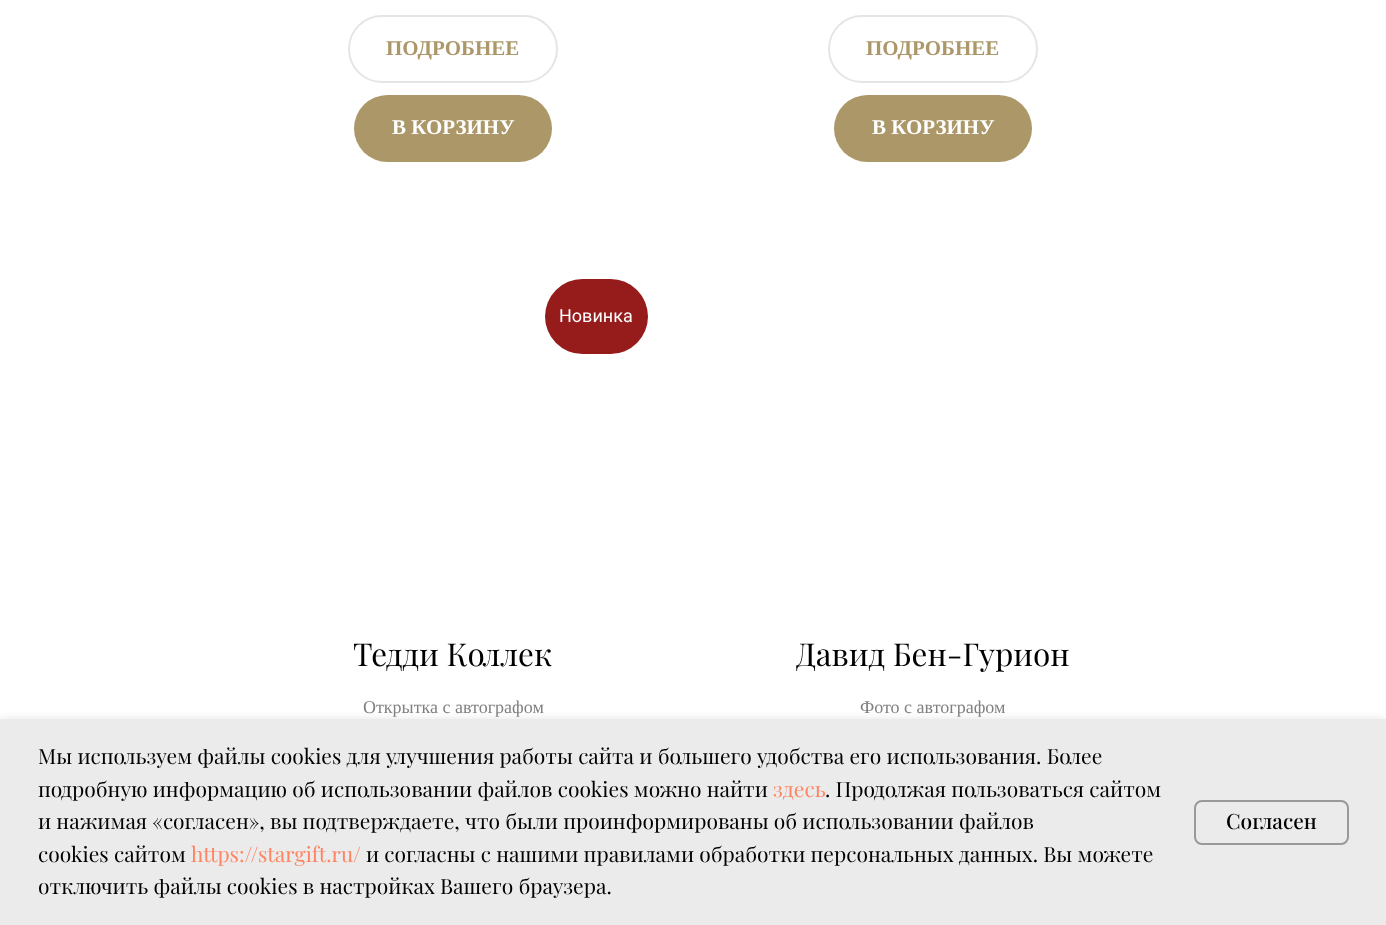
<svg xmlns="http://www.w3.org/2000/svg" width="1386" height="925">
<rect width="100%" height="100%" fill="#fff"/>
<rect x="349" y="16" width="208" height="66" rx="33" fill="none" stroke="#e5e5e5" stroke-width="2"/>
<text x="386" y="55" style="font-family:Liberation Serif;font-size:21px;font-weight:bold;fill:#ab9768">ПОДРОБНЕЕ</text>
<rect x="354" y="95" width="198" height="67" rx="33.5" fill="#ab9768"/>
<text x="392" y="134" style="font-family:Liberation Serif;font-size:21px;font-weight:bold;fill:#fff">В КОРЗИНУ</text>
<rect x="829" y="16" width="208" height="66" rx="33" fill="none" stroke="#e5e5e5" stroke-width="2"/>
<text x="866" y="55" style="font-family:Liberation Serif;font-size:21px;font-weight:bold;fill:#ab9768">ПОДРОБНЕЕ</text>
<rect x="834" y="95" width="198" height="67" rx="33.5" fill="#ab9768"/>
<text x="872" y="134" style="font-family:Liberation Serif;font-size:21px;font-weight:bold;fill:#fff">В КОРЗИНУ</text>
<rect x="545" y="279" width="103" height="75" rx="37.5" fill="#961b1b"/>
<text x="559" y="322" style="font-family:Roboto;font-size:18px;fill:#fff">Новинка</text>
<text x="353" y="666" style="font-family:Playfair Display;font-size:31.5px;fill:#000">Тедди Коллек</text>
<text x="363" y="713" style="font-family:Liberation Serif;font-size:18px;fill:#808080">Открытка с автографом</text>
<text x="796" y="666" style="font-family:Playfair Display;font-size:31.5px;fill:#000">Давид Бен-Гурион</text>
<text x="860" y="713" style="font-family:Liberation Serif;font-size:18px;fill:#808080">Фото с автографом</text>
<rect y="719" width="1386" height="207" fill="#0000001a" filter="blur(4px)"/>
<rect y="719" width="1386" height="206" fill="#ebebeb"/>
<text x="38" y="764" style="font-family:Playfair Display;font-size:21px;fill:#000">Мы используем файлы cookies для улучшения работы сайта и большего удобства его использования. Более</text>
<text x="38" y="797" style="font-family:Playfair Display;font-size:21px;fill:#000">подробную информацию об использовании файлов cookies можно найти</text>
<text x="773" y="797" style="font-family:Playfair Display;font-size:21px;fill:#ff8562">здесь</text>
<text x="825" y="797" style="font-family:Playfair Display;font-size:21px;fill:#000">. Продолжая пользоваться сайтом</text>
<text x="38" y="829" style="font-family:Playfair Display;font-size:21px;fill:#000">и нажимая «согласен», вы подтверждаете, что были проинформированы об использовании файлов</text>
<text x="38" y="862" style="font-family:Playfair Display;font-size:21px;fill:#000">cookies сайтом</text>
<text x="191" y="862" style="font-family:Playfair Display;font-size:21px;fill:#ff8562">https://stargift.ru/</text>
<text x="366" y="862" style="font-family:Playfair Display;font-size:21px;fill:#000">и согласны с нашими правилами обработки персональных данных. Вы можете</text>
<text x="38" y="894" style="font-family:Playfair Display;font-size:21px;fill:#000">отключить файлы cookies в настройках Вашего браузера.</text>
<rect x="1195" y="801" width="153" height="43" rx="7" fill="none" stroke="#999" stroke-width="2"/>
<text x="1226" y="829" style="font-family:Playfair Display;font-size:21px;font-weight:500;fill:#000">Согласен</text>
</svg>
